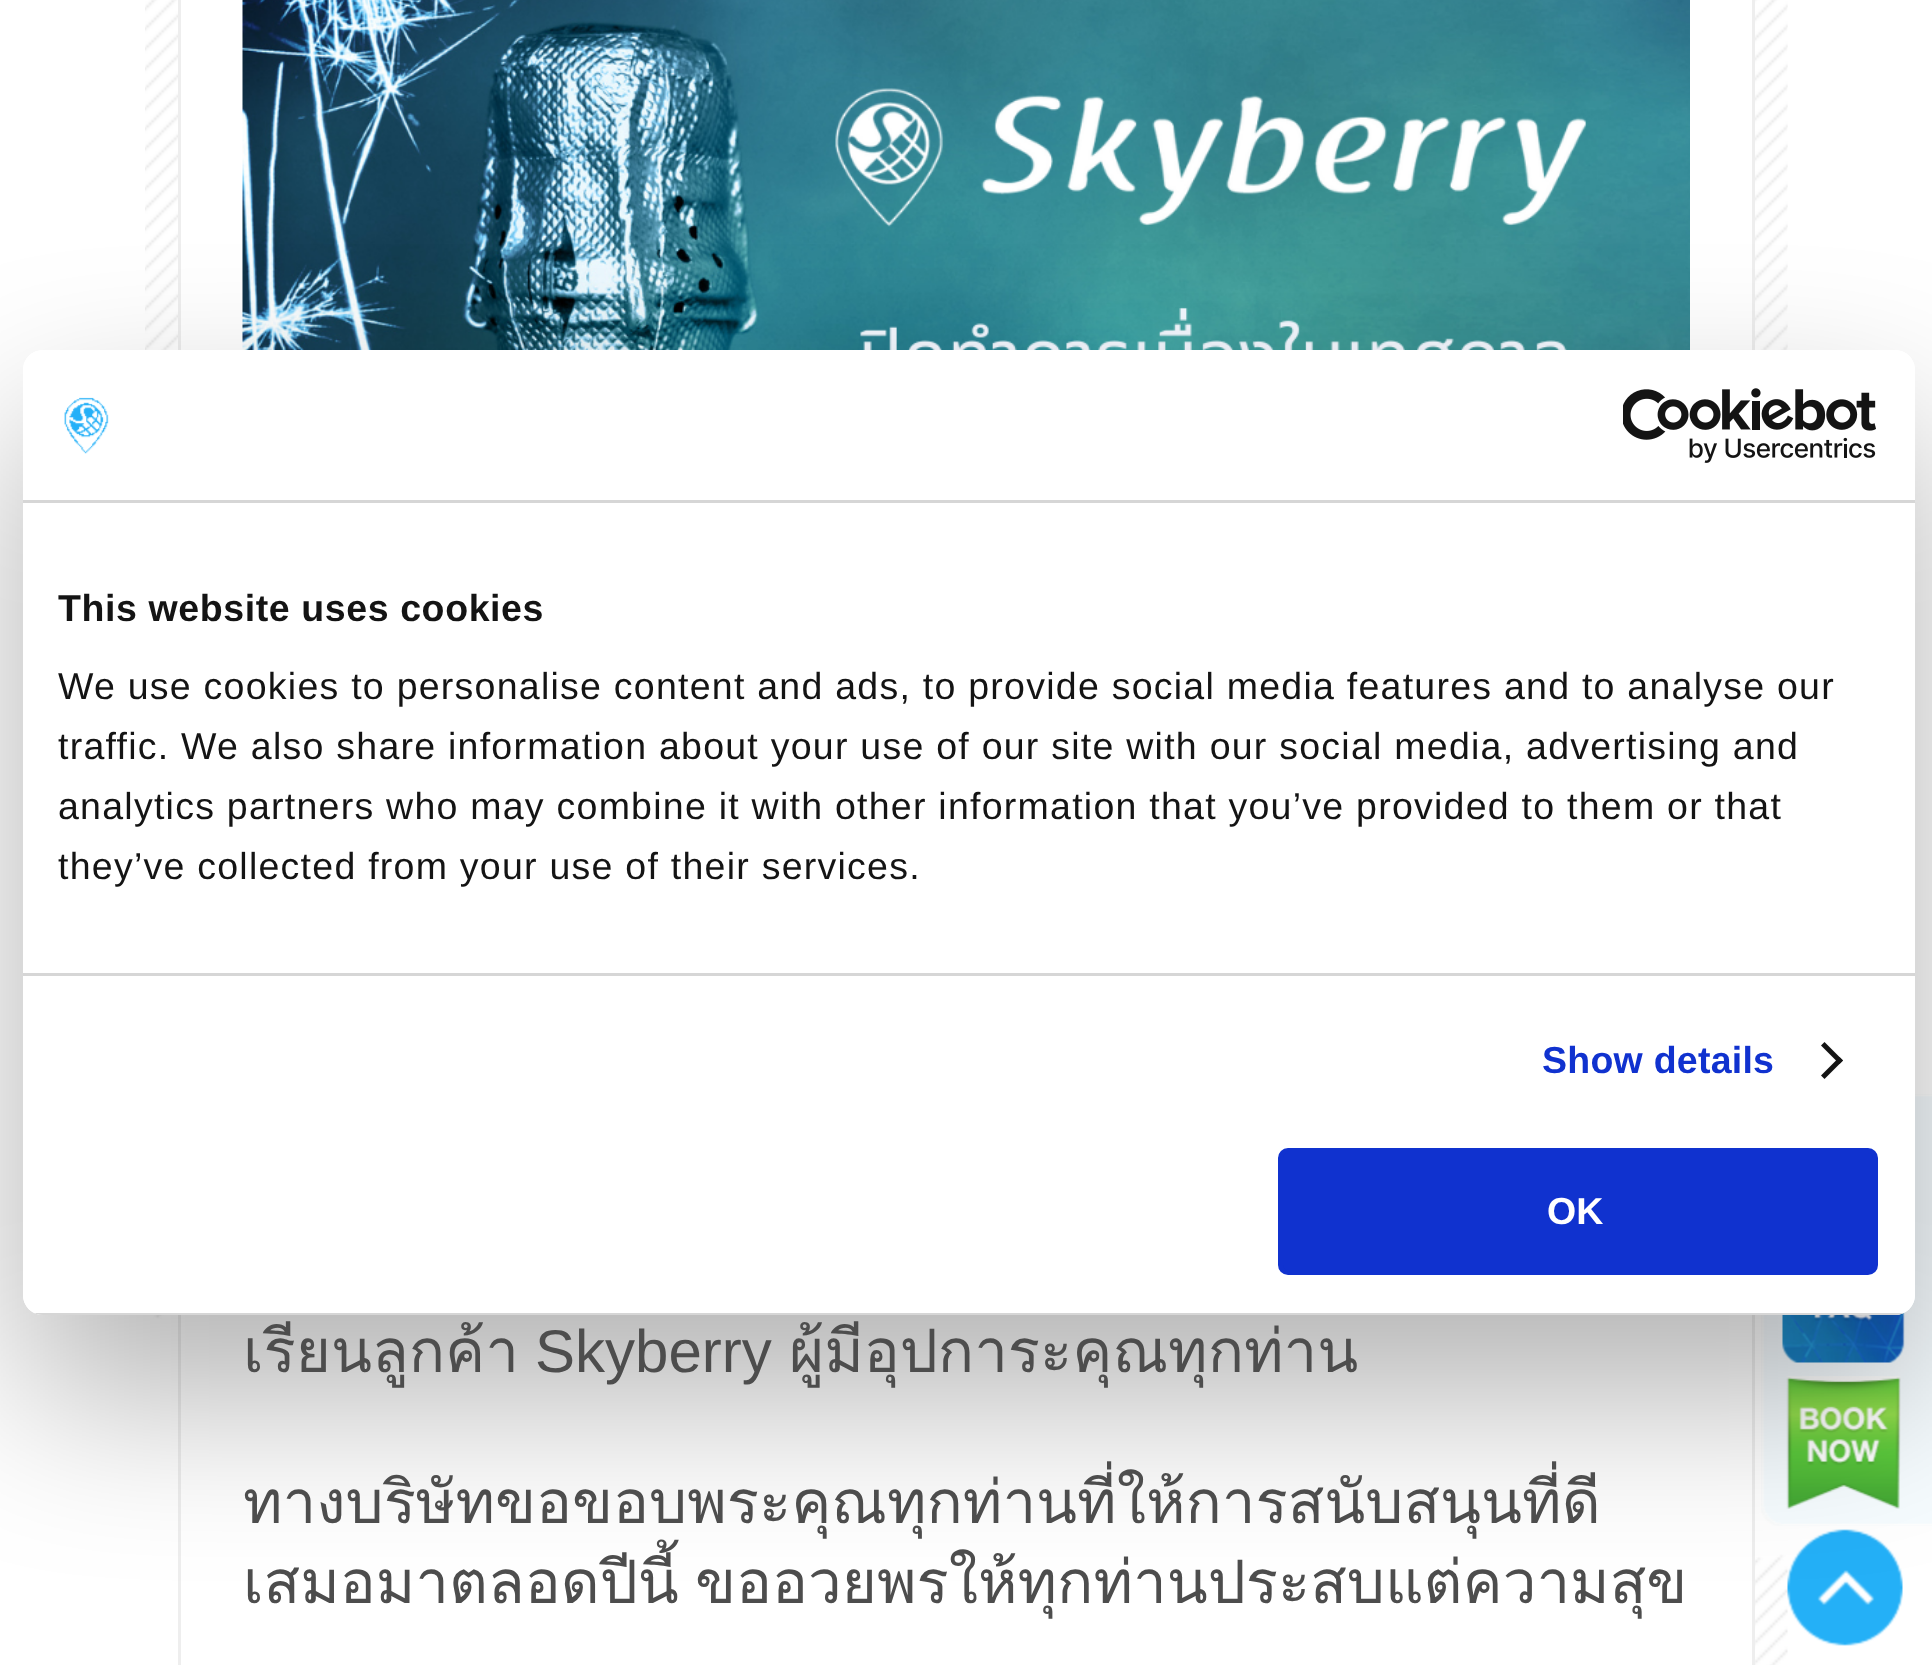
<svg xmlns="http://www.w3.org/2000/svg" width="1932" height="1665">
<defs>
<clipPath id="clip1"><path d="M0 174h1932v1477h-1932zm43 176h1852c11 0 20 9 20 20v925c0 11-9 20-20 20h-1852c-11 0-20-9-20-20v-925c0-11 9-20 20-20z" clip-rule="evenodd"/></clipPath>
<clipPath id="clip2"><rect x="23" y="350" width="1892" height="965" rx="20"/></clipPath>
</defs>
<rect width="100%" height="100%" fill="#fff"/>
<image x="145" y="0" width="1643" height="1665" href="media/3.png"/>
<rect x="179.5" y="-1.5" width="1574" height="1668" fill="#fff" stroke="#eee" stroke-width="3"/>
<image x="242" y="0" width="1448" height="350" href="media/4.png"/>
<image x="1761" y="1094" width="171" height="432" href="media/5.png"/>
<image x="1782" y="1312" width="123" height="51" href="media/6.png"/>
<image x="1786" y="1376" width="115" height="133" href="media/7.png"/>
<image x="1787" y="1529" width="116" height="117" href="media/8.png"/>
<g clip-path="url(#clip1)">
<rect x="23" y="430" width="1892" height="965" rx="20" fill="#0000004d" filter="blur(85px)"/>
</g>
<rect x="23" y="350" width="1892" height="965" rx="20" fill="#fff"/>
<rect x="23" y="500" width="1892" height="3" fill="#d6d6d6"/>
<image x="64" y="397" width="45" height="57" href="media/1.png"/>
<image x="1623" y="388" width="253" height="75" href="media/2.png"/>
<rect x="23" y="973" width="1892" height="3" fill="#d6d6d6"/>
<text x="58" y="621" style="font-family:Liberation Sans;font-size:37.5px;font-weight:bold;letter-spacing:0.6px;fill:#141414">This website uses cookies</text>
<text x="58" y="699" style="font-family:Liberation Sans;font-size:37.5px;letter-spacing:1.25px;fill:#141414">We use cookies to personalise content and ads, to provide social media features and to analyse our</text>
<text x="58" y="759" style="font-family:Liberation Sans;font-size:37.5px;letter-spacing:1.25px;fill:#141414">traffic. We also share information about your use of our site with our social media, advertising and</text>
<text x="58" y="819" style="font-family:Liberation Sans;font-size:37.5px;letter-spacing:1.25px;fill:#141414">analytics partners who may combine it with other information that you’ve provided to them or that</text>
<text x="58" y="879" style="font-family:Liberation Sans;font-size:37.5px;letter-spacing:1.25px;fill:#141414">they’ve collected from your use of their services.</text>
<text x="1542" y="1073" style="font-family:Liberation Sans;font-size:37.5px;font-weight:bold;letter-spacing:0.25px;fill:#1032cf">Show details</text>
<path d="M1824.5 1042l18.5 18.5l-3.5 3.5l-18.5-18.5z" fill="#141414"/>
<path d="M1839.5 1057l3.5 3.5l-18.5 18.5l-3.5-3.5z" fill="#141414"/>
<g clip-path="url(#clip2)">
<rect x="34" y="1313" width="1870" height="2" fill="#d6d6d6"/>
</g>
<rect x="1280.5" y="1150.5" width="595" height="122" rx="7.5" fill="#1032cf" stroke="#1032cf" stroke-width="5"/>
<text x="1547" y="1224" style="font-family:Liberation Sans;font-size:37.5px;font-weight:bold;fill:#fff">OK</text>
<text x="243" y="1372" style="font-family:Loma;font-size:60px;fill:#4d4d4d">เรียนลูกค้า</text>
<text x="535" y="1372" style="font-family:Liberation Sans;font-size:60px;fill:#4d4d4d">Skyberry</text>
<text x="789" y="1372" style="font-family:Loma;font-size:60px;fill:#4d4d4d">ผู้มีอุปการะคุณทุกท่าน</text>
<text x="243" y="1523" style="font-family:Loma;font-size:60px;fill:#4d4d4d">ทางบริษัทขอขอบพระคุณทุกท่านที่ให้การสนับสนุนที่ดี</text>
<text x="243" y="1603" word-spacing="-4" style="font-family:Loma;font-size:60px;fill:#4d4d4d">เสมอมาตลอดปีนี้ ขออวยพรให้ทุกท่านประสบแต่ความสุข</text>
</svg>
